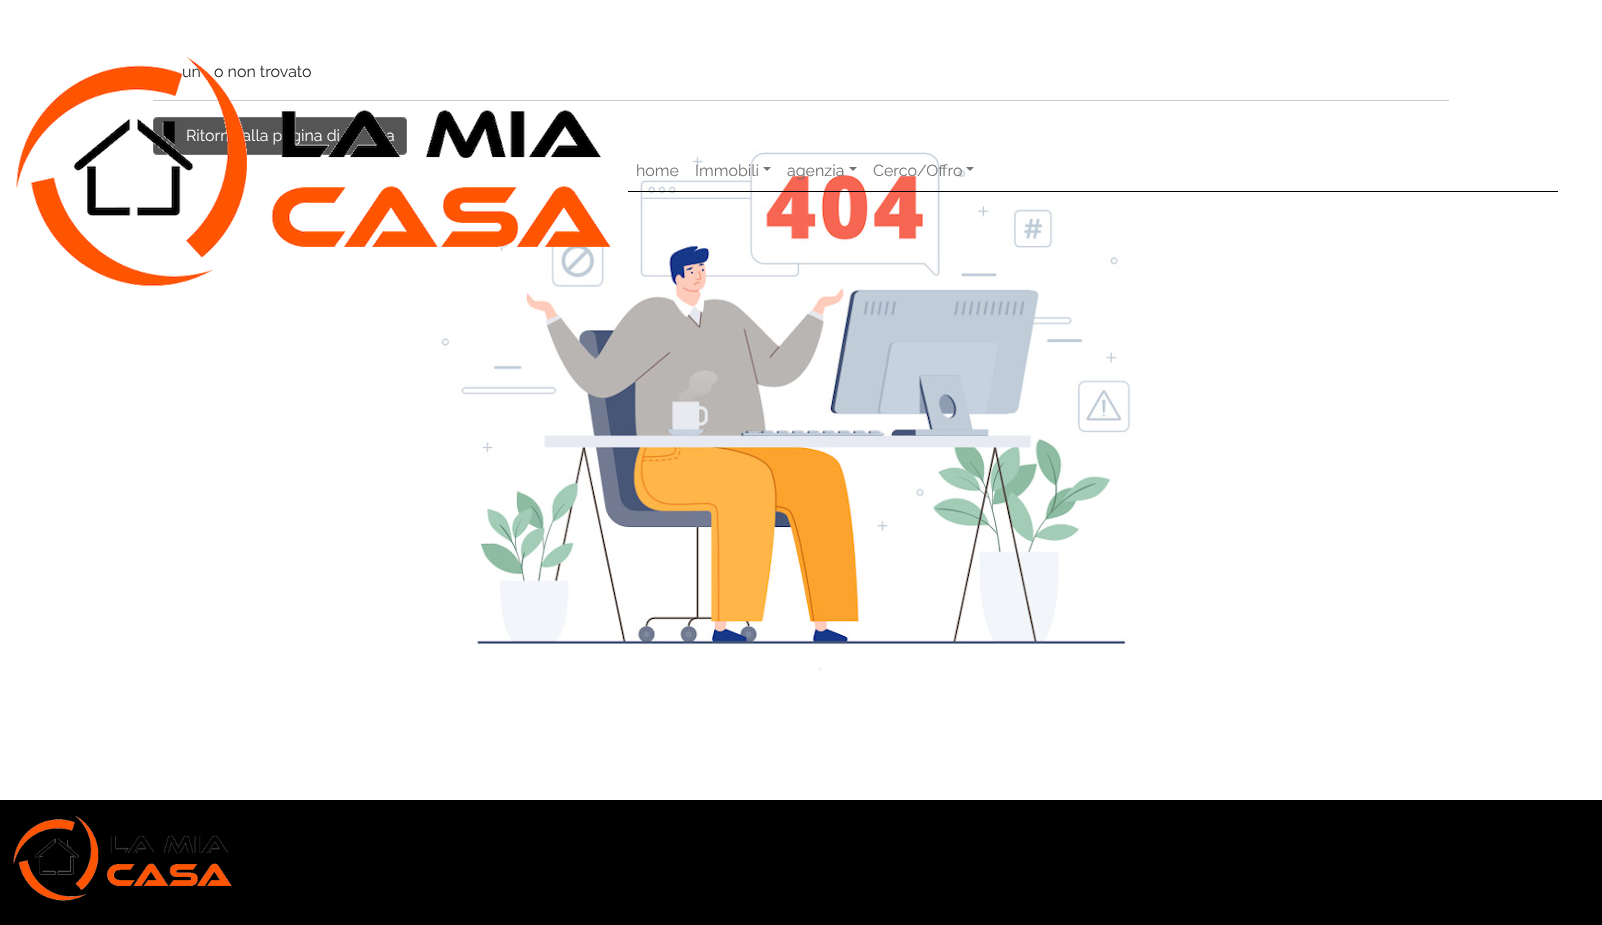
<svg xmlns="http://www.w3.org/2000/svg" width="1602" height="925">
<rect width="100%" height="100%" fill="#fff"/>
<image x="441" y="149" width="690" height="522" href="media/1.png"/>
<text x="182" y="77" style="font-family:Raleway;font-size:16px;fill:#212529">un</text>
<text x="214" y="77" style="font-family:Raleway;font-size:16px;fill:#212529">o non trovato</text>
<rect x="153" y="100" width="1296" height="1" fill="#c8c9ca"/>
<rect x="153.5" y="117.5" width="253" height="37" rx="3.5" fill="#555" stroke="#6c757d"/>
<text x="186" y="141" style="font-family:Raleway;font-size:16px;fill:#fff">Ritorna alla pagina di</text>
<text x="386" y="141" style="font-family:Raleway;font-size:16px;fill:#fff">a</text>
<image x="15" y="57" width="596" height="231" href="media/2.png"/>
<rect x="628" y="191" width="930" height="1" fill="#000"/>
<text x="636" y="176" style="font-family:Raleway;font-size:16px;fill:#737373">home</text>
<text x="695" y="176" style="font-family:Raleway;font-size:16px;fill:#737373">Immobili</text>
<path d="M763 167h8l-4 4z" fill="#737373"/>
<text x="787" y="176" style="font-family:Raleway;font-size:16px;fill:#726d6d">agenzia</text>
<path d="M849 167h8l-4 4z" fill="#737373"/>
<text x="873" y="176" style="font-family:Raleway;font-size:16px;fill:#737373">Cerco/Offro</text>
<path d="M966 167h8l-4 4z" fill="#737373"/>
<rect y="800" width="1602" height="125" fill="#000"/>
<image x="13" y="816" width="219" height="85" href="media/3.png"/>
</svg>
